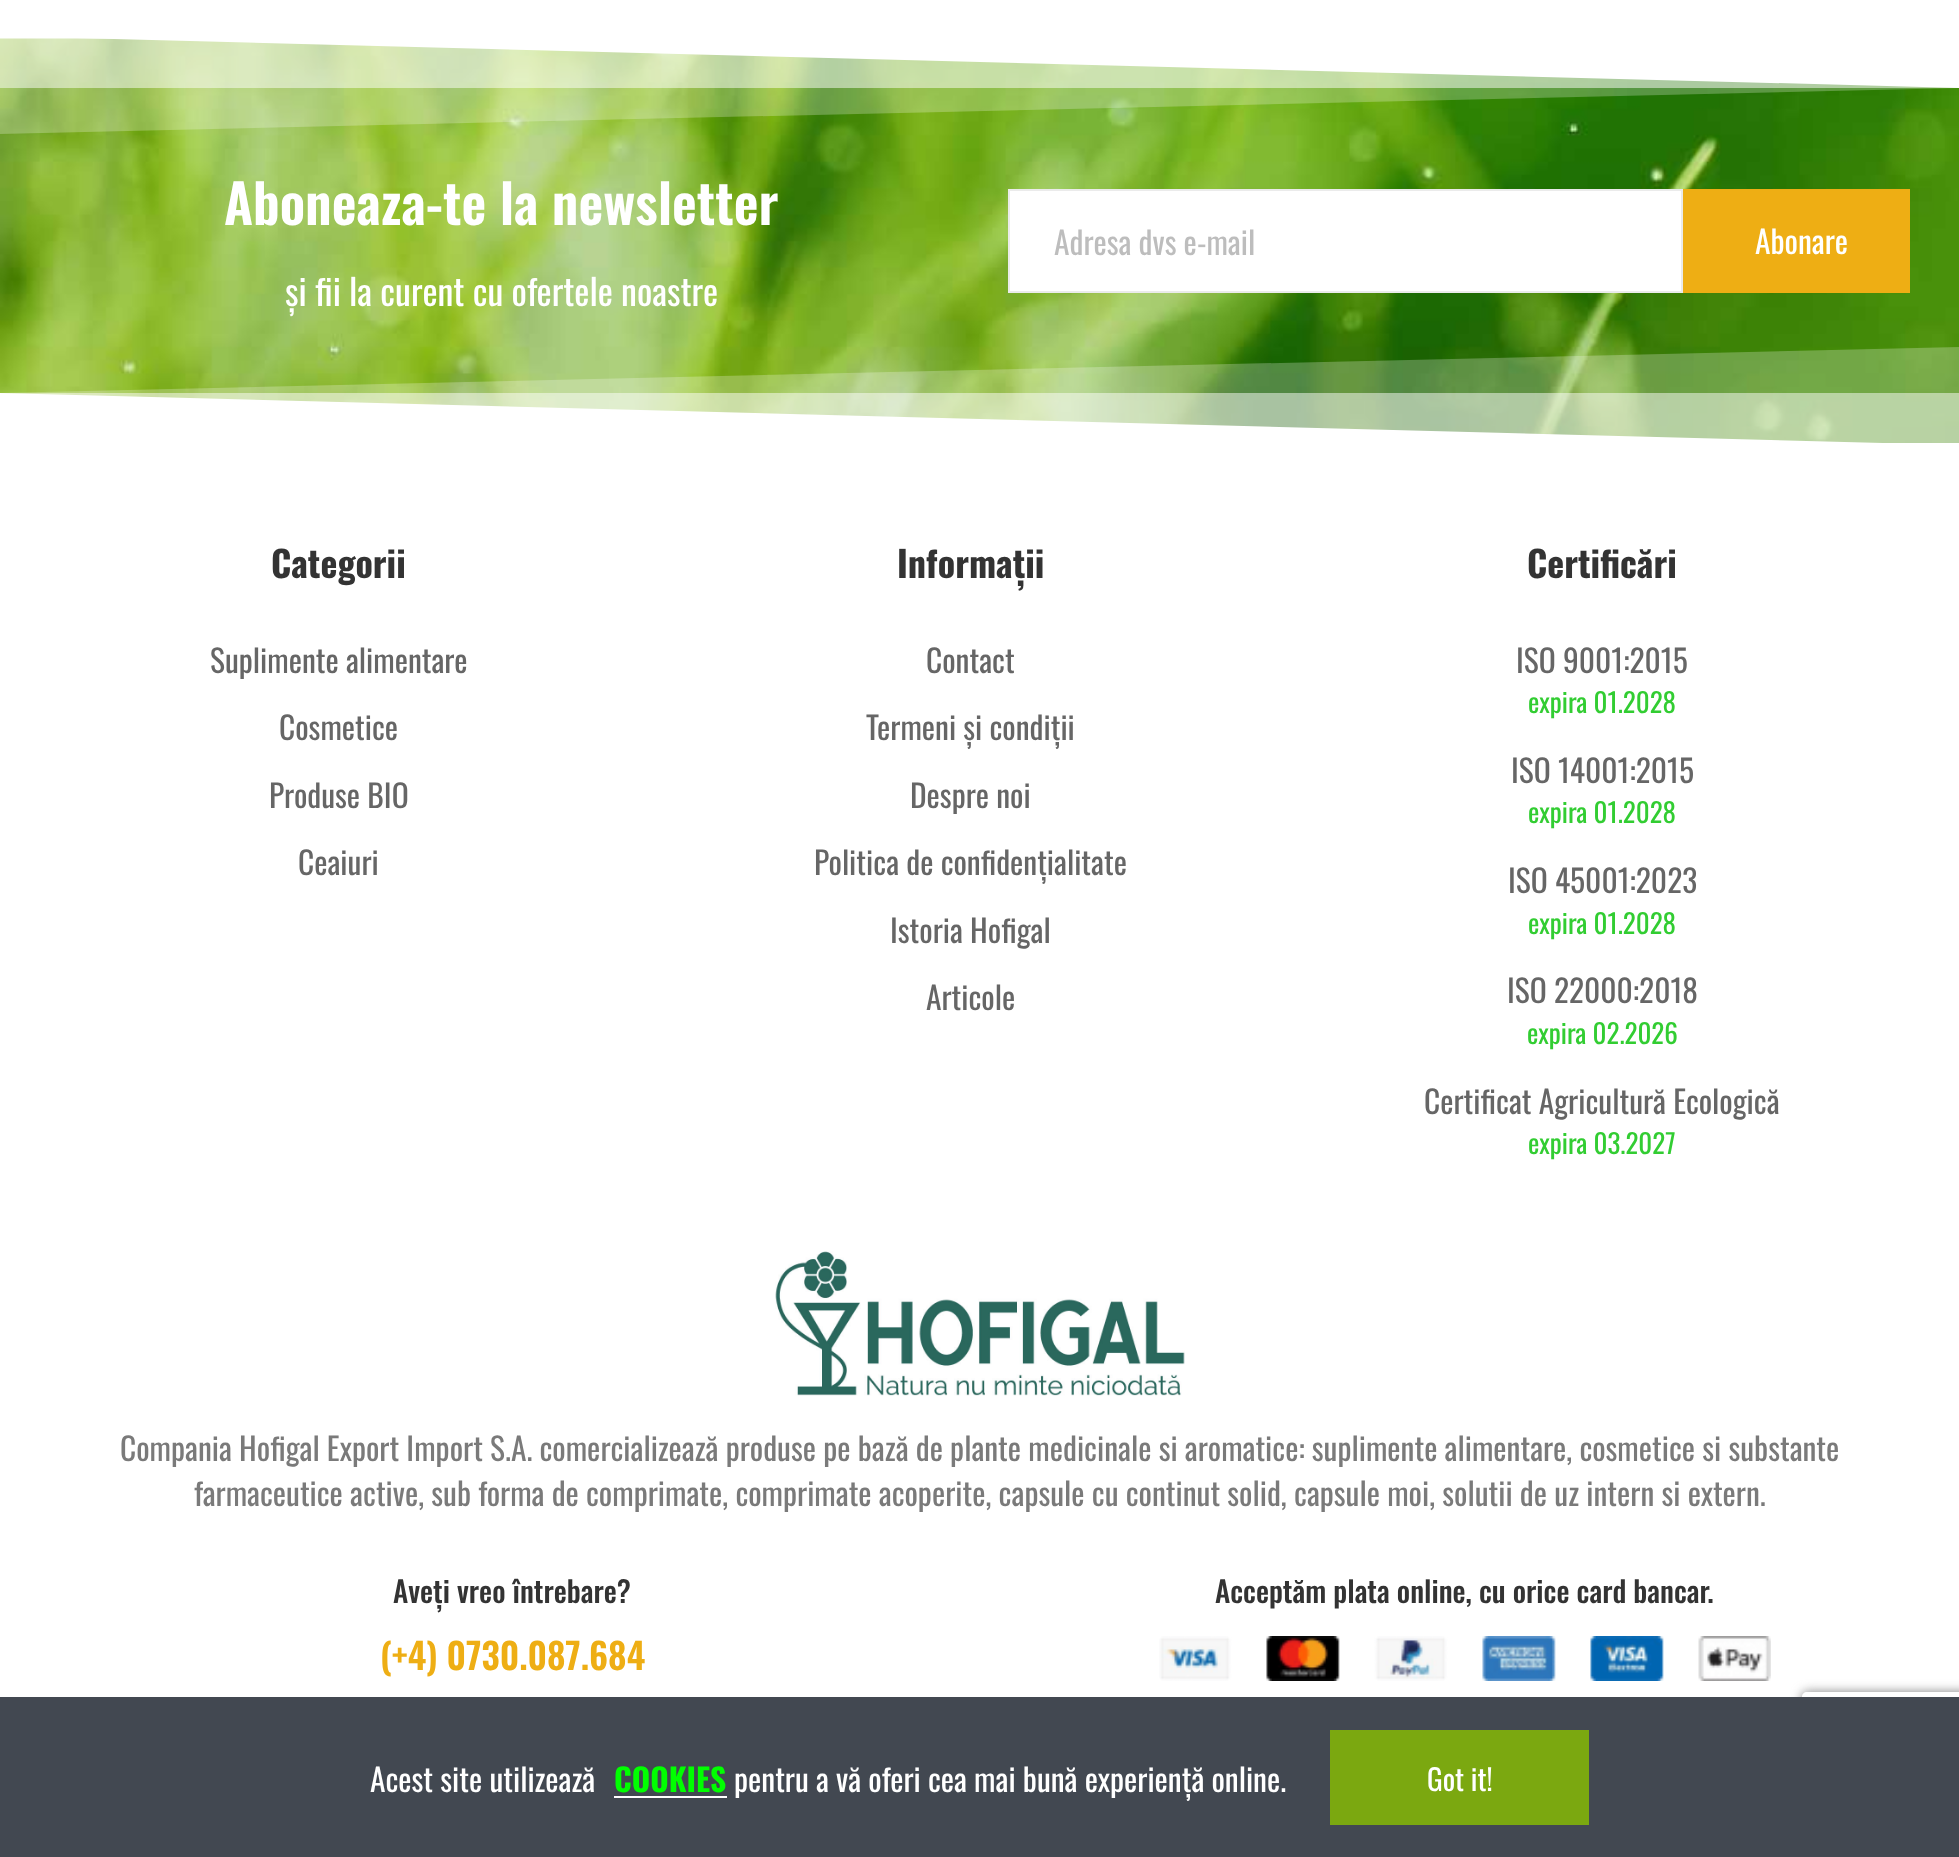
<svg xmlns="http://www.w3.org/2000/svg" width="1959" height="1857">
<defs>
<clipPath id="clip1"><path d="M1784 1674h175v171h-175zm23 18h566c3 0 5 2 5 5v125c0 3-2 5-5 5h-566c-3 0-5-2-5-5v-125c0-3 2-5 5-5z" clip-rule="evenodd"/></clipPath>
</defs>
<rect width="100%" height="100%" fill="#fff"/>
<image x="0" y="38" width="1959" height="405" href="media/1.png"/>
<path d="M0 36h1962v52z" fill="#fff"/>
<rect y="38" width="1959" height="50" fill="#ffffff80"/>
<path d="M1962 36h-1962v98l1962-46z" fill="#ffffff40"/>
<text x="224" y="225" style="font-family:Oswald;font-size:54px;font-weight:600;fill:#fff">Aboneaza-te la newsletter</text>
<text x="285" y="306" style="font-family:Oswald;font-size:36px;fill:#fff">și fii la curent cu ofertele noastre</text>
<rect x="1009" y="190" width="673" height="102" fill="#fff" stroke="#ebebeb" stroke-width="2"/>
<text x="1054" y="255" style="font-family:Oswald;font-size:31.5px;fill:#bdbdbd">Adresa dvs e-mail</text>
<rect x="1683" y="189" width="227" height="104" fill="#eeae14"/>
<text x="1755" y="254" style="font-family:Oswald;font-size:31.5px;fill:#fff">Abonare</text>
<path d="M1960 445h-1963v-52z" fill="#fff"/>
<rect y="393" width="1959" height="50" fill="#ffffff80"/>
<path d="M-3 445h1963v-98l-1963 46z" fill="#ffffff40"/>
<text x="271" y="578" style="font-family:Oswald;font-size:36px;font-weight:bold;fill:#333">Categorii</text>
<text x="210" y="673" style="font-family:Oswald;font-size:31.5px;fill:#666">Suplimente alimentare</text>
<text x="279" y="740" style="font-family:Oswald;font-size:31.5px;fill:#666">Cosmetice</text>
<text x="269" y="808" style="font-family:Oswald;font-size:31.5px;fill:#666">Produse BIO</text>
<text x="298" y="875" style="font-family:Oswald;font-size:31.5px;fill:#666">Ceaiuri</text>
<text x="897" y="578" style="font-family:Oswald;font-size:36px;font-weight:bold;fill:#333">Informații</text>
<text x="926" y="673" style="font-family:Oswald;font-size:31.5px;fill:#666">Contact</text>
<text x="866" y="740" style="font-family:Oswald;font-size:31.5px;fill:#666">Termeni și condiții</text>
<text x="910" y="808" style="font-family:Oswald;font-size:31.5px;fill:#666">Despre noi</text>
<text x="814" y="875" style="font-family:Oswald;font-size:31.5px;fill:#666">Politica de confidențialitate</text>
<text x="890" y="943" style="font-family:Oswald;font-size:31.5px;fill:#666">Istoria Hofigal</text>
<text x="926" y="1010" style="font-family:Oswald;font-size:31.5px;fill:#666">Articole</text>
<text x="1527" y="578" style="font-family:Oswald;font-size:36px;font-weight:bold;fill:#333">Certificări</text>
<text x="1516" y="673" style="font-family:Oswald;font-size:31.5px;fill:#666">ISO 9001:2015</text>
<text x="1528" y="713" style="font-family:Oswald;font-size:27px;fill:#32cd32">expira 01.2028</text>
<text x="1511" y="783" style="font-family:Oswald;font-size:31.5px;fill:#666">ISO 14001:2015</text>
<text x="1528" y="823" style="font-family:Oswald;font-size:27px;fill:#32cd32">expira 01.2028</text>
<text x="1508" y="893" style="font-family:Oswald;font-size:31.5px;fill:#666">ISO 45001:2023</text>
<text x="1528" y="934" style="font-family:Oswald;font-size:27px;fill:#32cd32">expira 01.2028</text>
<text x="1507" y="1003" style="font-family:Oswald;font-size:31.5px;fill:#666">ISO 22000:2018</text>
<text x="1527" y="1044" style="font-family:Oswald;font-size:27px;fill:#32cd32">expira 02.2026</text>
<text x="1424" y="1114" style="font-family:Oswald;font-size:31.5px;fill:#666">Certificat Agricultură Ecologică</text>
<text x="1528" y="1154" style="font-family:Oswald;font-size:27px;fill:#32cd32">expira 03.2027</text>
<image x="775" y="1251" width="410" height="145" href="media/2.png"/>
<text x="120" y="1461" style="font-family:Oswald;font-size:31.5px;fill:#7a7a7a">Compania Hofigal Export Import S.A. comercializează produse pe bază de plante medicinale si aromatice: suplimente alimentare, cosmetice si substante</text>
<text x="194" y="1506" style="font-family:Oswald;font-size:31.5px;fill:#7a7a7a">farmaceutice active, sub forma de comprimate, comprimate acoperite, capsule cu continut solid, capsule moi, solutii de uz intern si extern.</text>
<text x="393" y="1603" style="font-family:Oswald;font-size:29.25px;font-weight:500;fill:#333">Aveți vreo întrebare?</text>
<text x="380" y="1670" style="font-family:Oswald;font-size:36px;font-weight:600;fill:#eeae14">(+4) 0730.087.684</text>
<text x="1215" y="1603" style="font-family:Oswald;font-size:29.25px;font-weight:500;fill:#333">Acceptăm plata online, cu orice card bancar.</text>
<image x="1159" y="1636" width="612" height="45" href="media/3.png"/>
<g clip-path="url(#clip1)">
<rect x="1802" y="1692" width="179" height="135" rx="5" fill="#808080" filter="blur(5.5px)"/>
</g>
<rect y="1697" width="1959" height="160" fill="#424851"/>
<text x="370" y="1792" style="font-family:Oswald;font-size:31.5px;fill:#fff">Acest site utilizează</text>
<text x="614" y="1792" style="font-family:Oswald;font-size:31.5px;font-weight:bold;fill:#0f0">COOKIES</text>
<rect x="614" y="1796" width="113" height="2" fill="#fff"/>
<text x="734" y="1792" style="font-family:Oswald;font-size:31.5px;fill:#fff">pentru a vă oferi cea mai bună experiență online.</text>
<rect x="1330" y="1730" width="259" height="95" fill="#7ba810"/>
<text x="1427" y="1791" style="font-family:Oswald;font-size:29.25px;fill:#fff">Got it!</text>
</svg>
